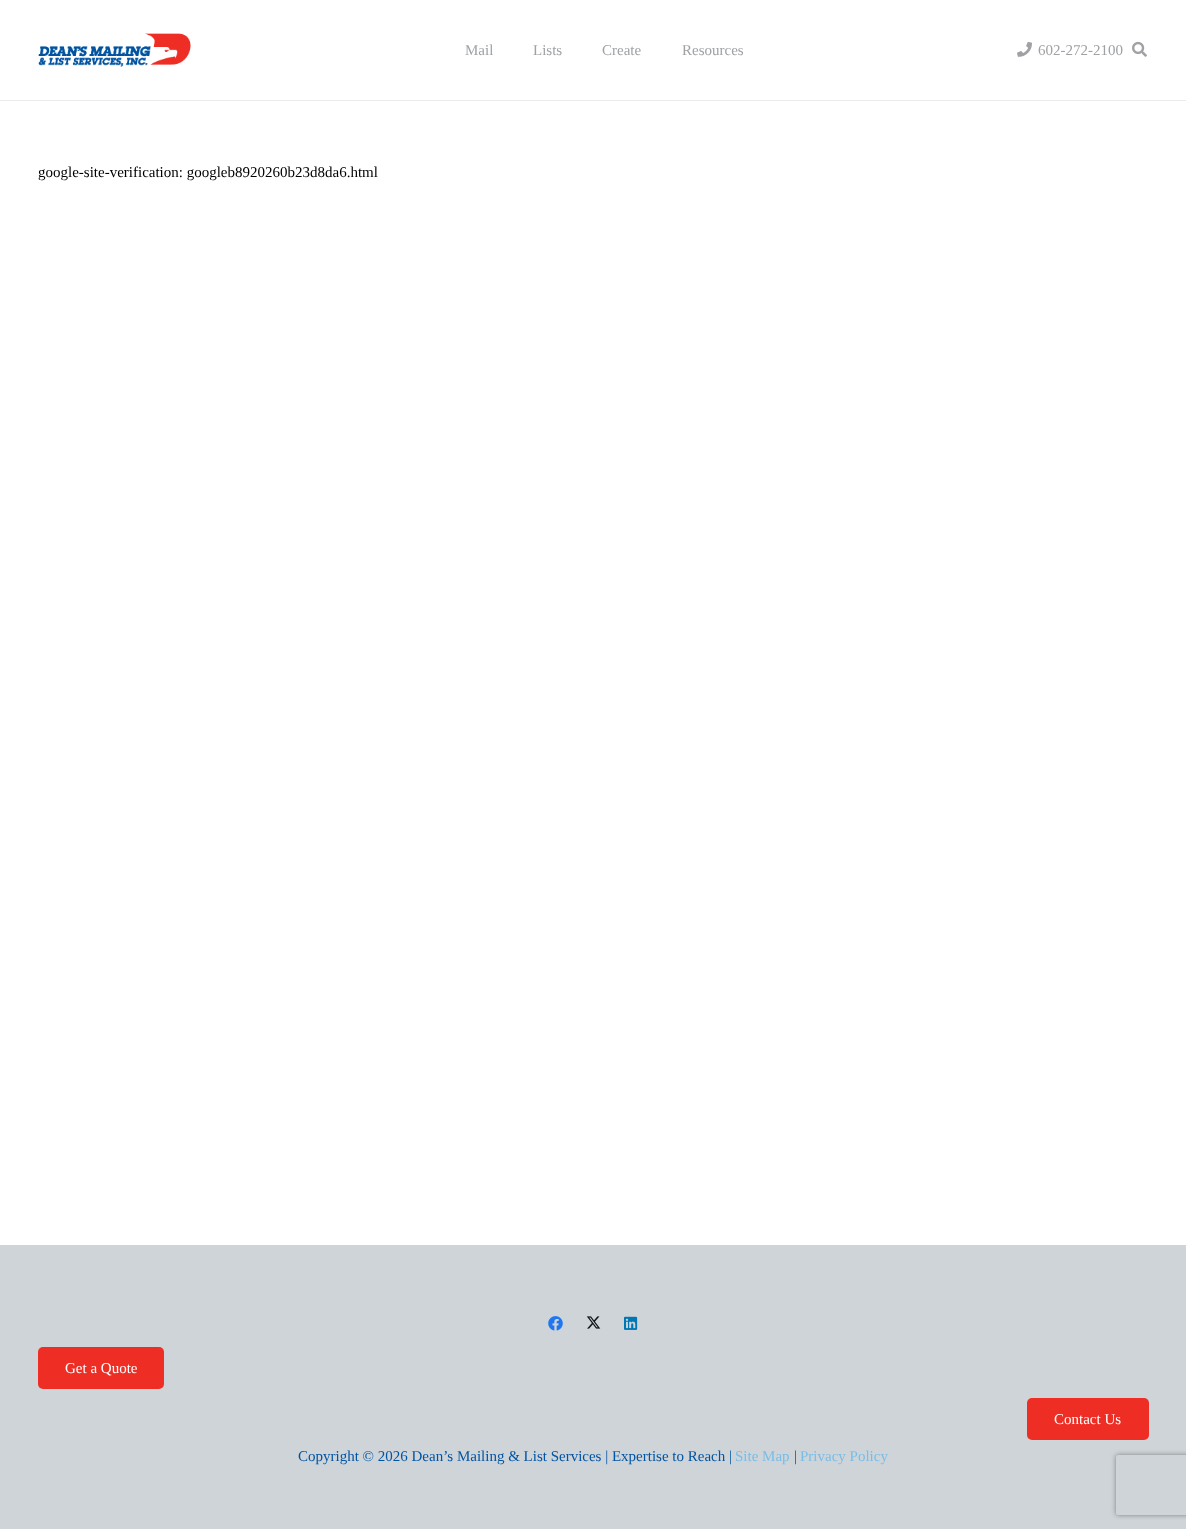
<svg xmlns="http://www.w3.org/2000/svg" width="1186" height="1529">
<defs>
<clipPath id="clip1"><path d="M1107 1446h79v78h-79zm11 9h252c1 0 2 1 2 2v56c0 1-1 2-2 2h-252c-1 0-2-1-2-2v-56c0-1 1-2 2-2z" clip-rule="evenodd"/></clipPath>
</defs>
<rect width="100%" height="100%" fill="#fff"/>
<rect y="100" width="1186" height="1" fill="#ebebeb"/>
<image x="38" y="33" width="153" height="34" href="media/1.png"/>
<text x="465" y="55" style="font-family:Liberation Serif;font-size:15px;fill:#9fa1a4">Mail</text>
<text x="533" y="55" style="font-family:Liberation Serif;font-size:15px;fill:#9fa1a4">Lists</text>
<text x="602" y="55" style="font-family:Liberation Serif;font-size:15px;fill:#9fa1a4">Create</text>
<text x="682" y="55" style="font-family:Liberation Serif;font-size:15px;fill:#9fa1a4">Resources</text>
<image x="1017" y="41" width="15" height="16" href="media/2.png"/>
<text x="1038" y="55" style="font-family:Liberation Serif;font-size:15px;fill:#9fa1a4">602-272-2100</text>
<image x="1132" y="41" width="15" height="16" href="media/3.png"/>
<text x="38" y="177" style="font-family:Liberation Serif;font-size:15px;fill:#000">google-site-verification: googleb8920260b23d8da6.html</text>
<rect y="1245" width="1186" height="284" fill="#cfd4d8"/>
<image x="548" y="1316" width="15" height="15" href="media/4.png"/>
<image x="586" y="1316" width="15" height="13" href="media/5.png"/>
<image x="624" y="1316" width="14" height="14" href="media/6.png"/>
<rect x="38" y="1347" width="126" height="42" rx="5" fill="#ee2e24"/>
<text x="65" y="1373" style="font-family:Liberation Serif;font-size:15px;fill:#fff">Get a Quote</text>
<rect x="1027" y="1398" width="122" height="42" rx="5" fill="#ee2e24"/>
<text x="1054" y="1424" style="font-family:Liberation Serif;font-size:15px;fill:#fff">Contact Us</text>
<text x="298" y="1461" style="font-family:Liberation Serif;font-size:15px;fill:#0054a4">Copyright © 2026 Dean’s Mailing &amp; List Services | Expertise to Reach |</text>
<text x="735" y="1461" style="font-family:Liberation Serif;font-size:15px;fill:#78bde8">Site Map</text>
<text x="794" y="1461" style="font-family:Liberation Serif;font-size:15px;fill:#0054a4">|</text>
<text x="800" y="1461" style="font-family:Liberation Serif;font-size:15px;fill:#78bde8">Privacy Policy</text>
<g clip-path="url(#clip1)">
<rect x="1116" y="1455" width="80" height="60" rx="2" fill="#808080" filter="blur(2.5px)"/>
</g>
</svg>
